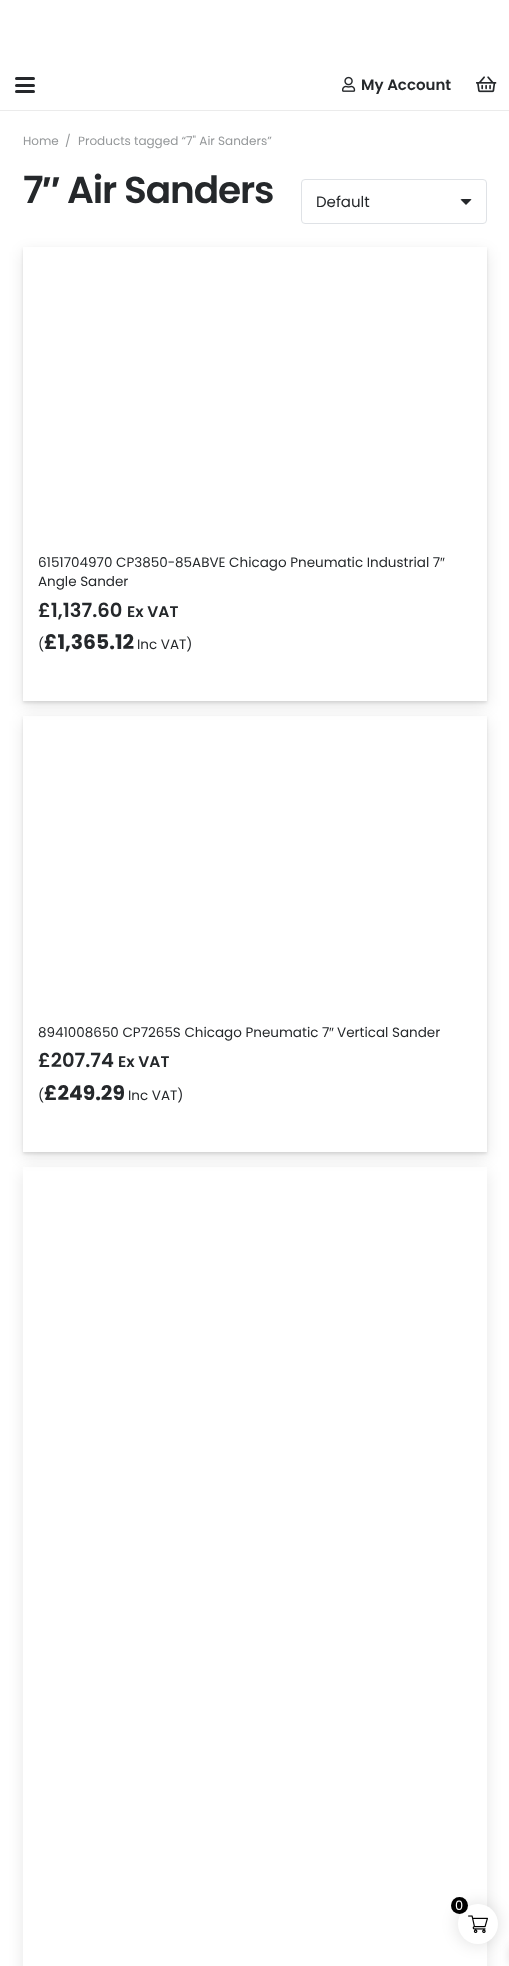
<svg xmlns="http://www.w3.org/2000/svg" width="509" height="1966">
<defs>
<clipPath id="clip1"><path d="M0 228h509v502h-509zm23 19h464v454h-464z" clip-rule="evenodd"/></clipPath>
<clipPath id="clip2"><path d="M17 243h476v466h-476zm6 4h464v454h-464z" clip-rule="evenodd"/></clipPath>
<clipPath id="clip3"><path d="M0 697h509v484h-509zm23 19h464v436h-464z" clip-rule="evenodd"/></clipPath>
<clipPath id="clip4"><path d="M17 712h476v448h-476zm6 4h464v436h-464z" clip-rule="evenodd"/></clipPath>
<clipPath id="clip5"><path d="M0 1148h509v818h-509zm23 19h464v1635h-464z" clip-rule="evenodd"/></clipPath>
</defs>
<rect width="100%" height="100%" fill="#fff"/>
<rect y="110" width="509" height="1" fill="#ebebeb"/>
<rect x="15" y="84" width="20" height="3" rx="1.5" fill="#25282b"/>
<rect x="15" y="77" width="20" height="3" rx="1.5" fill="#25282b"/>
<rect x="15" y="90" width="20" height="3" rx="1.5" fill="#25282b"/>
<image x="342" y="76" width="14" height="16" href="media/1.png"/>
<text x="361" y="90" style="font-family:Poppins;font-size:15px;font-weight:600;fill:#25282b">My Account</text>
<image x="476" y="76" width="21" height="17" href="media/2.png"/>
<text x="23" y="145" style="font-family:Poppins;font-size:12px;fill:#949799">Home</text>
<text x="65" y="145" style="font-family:Poppins;font-size:12px;fill:#949799">/</text>
<text x="78" y="145" style="font-family:Poppins;font-size:12px;fill:#949799">Products tagged “7" Air Sanders”</text>
<text x="23" y="203" style="font-family:Poppins;font-size:37.5px;font-weight:600;letter-spacing:-1.1px;fill:#25282b">7</text>
<text x="42" y="203" style="font-family:Liberation Sans;font-size:37.5px;font-weight:bold;letter-spacing:-1.1px;fill:#25282b">″</text>
<text x="67" y="203" style="font-family:Poppins;font-size:37.5px;font-weight:600;letter-spacing:-1.1px;fill:#25282b">Air Sanders</text>
<rect x="301.5" y="179.5" width="185" height="44" rx="3.5" fill="none" stroke="#dfe2e6"/>
<text x="316" y="207" style="font-family:Poppins;font-size:15px;fill:#25282b">Default</text>
<path d="M462 199l-1.5 .5l5.5 5.5l5.5-5.5c-.5-.5-1.5-.5-3-.5z" fill="#25282b"/>
<g clip-path="url(#clip1)">
<rect x="23" y="252" width="464" height="454" fill="#0000001a" filter="blur(7.5px)"/>
</g>
<g clip-path="url(#clip2)">
<rect x="23" y="249" width="464" height="454" fill="#0000001a" filter="blur(1.5px)"/>
</g>
<text x="38" y="567" style="font-family:Poppins;font-size:13.5px;fill:#25282b">6151704970 CP3850-85ABVE Chicago Pneumatic Industrial 7</text>
<text x="440" y="567" style="font-family:Liberation Sans;font-size:13.5px;fill:#25282b">″</text>
<text x="38" y="586" style="font-family:Poppins;font-size:13.5px;fill:#25282b">Angle Sander</text>
<text x="38" y="617" style="font-family:Poppins;font-size:19.5px;font-weight:600;fill:#25282b">£1,137.60</text>
<text x="127" y="617" style="font-family:Poppins;font-size:15.5px;font-weight:600;fill:#25282b">Ex VAT</text>
<text x="38" y="649" style="font-family:Poppins;font-size:13.5px;fill:#25282b">(</text>
<text x="44" y="649" style="font-family:Poppins;font-size:20.25px;font-weight:bold;fill:#25282b">£1,365.12</text>
<text x="137" y="649" style="font-family:Poppins;font-size:13.5px;fill:#25282b">Inc VAT)</text>
<g clip-path="url(#clip3)">
<rect x="23" y="721" width="464" height="436" fill="#0000001a" filter="blur(7.5px)"/>
</g>
<g clip-path="url(#clip4)">
<rect x="23" y="718" width="464" height="436" fill="#0000001a" filter="blur(1.5px)"/>
</g>
<text x="38" y="1037" style="font-family:Poppins;font-size:13.5px;fill:#25282b">8941008650 CP7265S Chicago Pneumatic 7</text>
<text x="329" y="1037" style="font-family:Liberation Sans;font-size:13.5px;fill:#25282b">″</text>
<text x="337" y="1037" style="font-family:Poppins;font-size:13.5px;fill:#25282b">Vertical Sander</text>
<text x="38" y="1067" style="font-family:Poppins;font-size:19.5px;font-weight:600;fill:#25282b">£207.74</text>
<text x="118" y="1067" style="font-family:Poppins;font-size:15.5px;font-weight:600;fill:#25282b">Ex VAT</text>
<text x="38" y="1100" style="font-family:Poppins;font-size:13.5px;fill:#25282b">(</text>
<text x="44" y="1100" style="font-family:Poppins;font-size:20.25px;font-weight:bold;fill:#25282b">£249.29</text>
<text x="128" y="1100" style="font-family:Poppins;font-size:13.5px;fill:#25282b">Inc VAT)</text>
<g clip-path="url(#clip5)">
<rect x="23" y="1172" width="464" height="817" fill="#0000001a" filter="blur(7.5px)"/>
</g>
<rect x="456" y="1902" width="44" height="44" rx="22" fill="#0000001a" filter="blur(7.5px)"/>
<rect x="509" y="1945" width="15" height="20" fill="#0000001a" filter="blur(5px)"/>
<circle cx="478" cy="1924" r="20" fill="#fff"/>
<circle cx="459.5" cy="1905.5" r="8.5" fill="#000"/>
<text x="455" y="1910" style="font-family:Poppins;font-size:13px;fill:#fff">0</text>
<image x="468" y="1915" width="20" height="18" href="media/3.png"/>
</svg>
